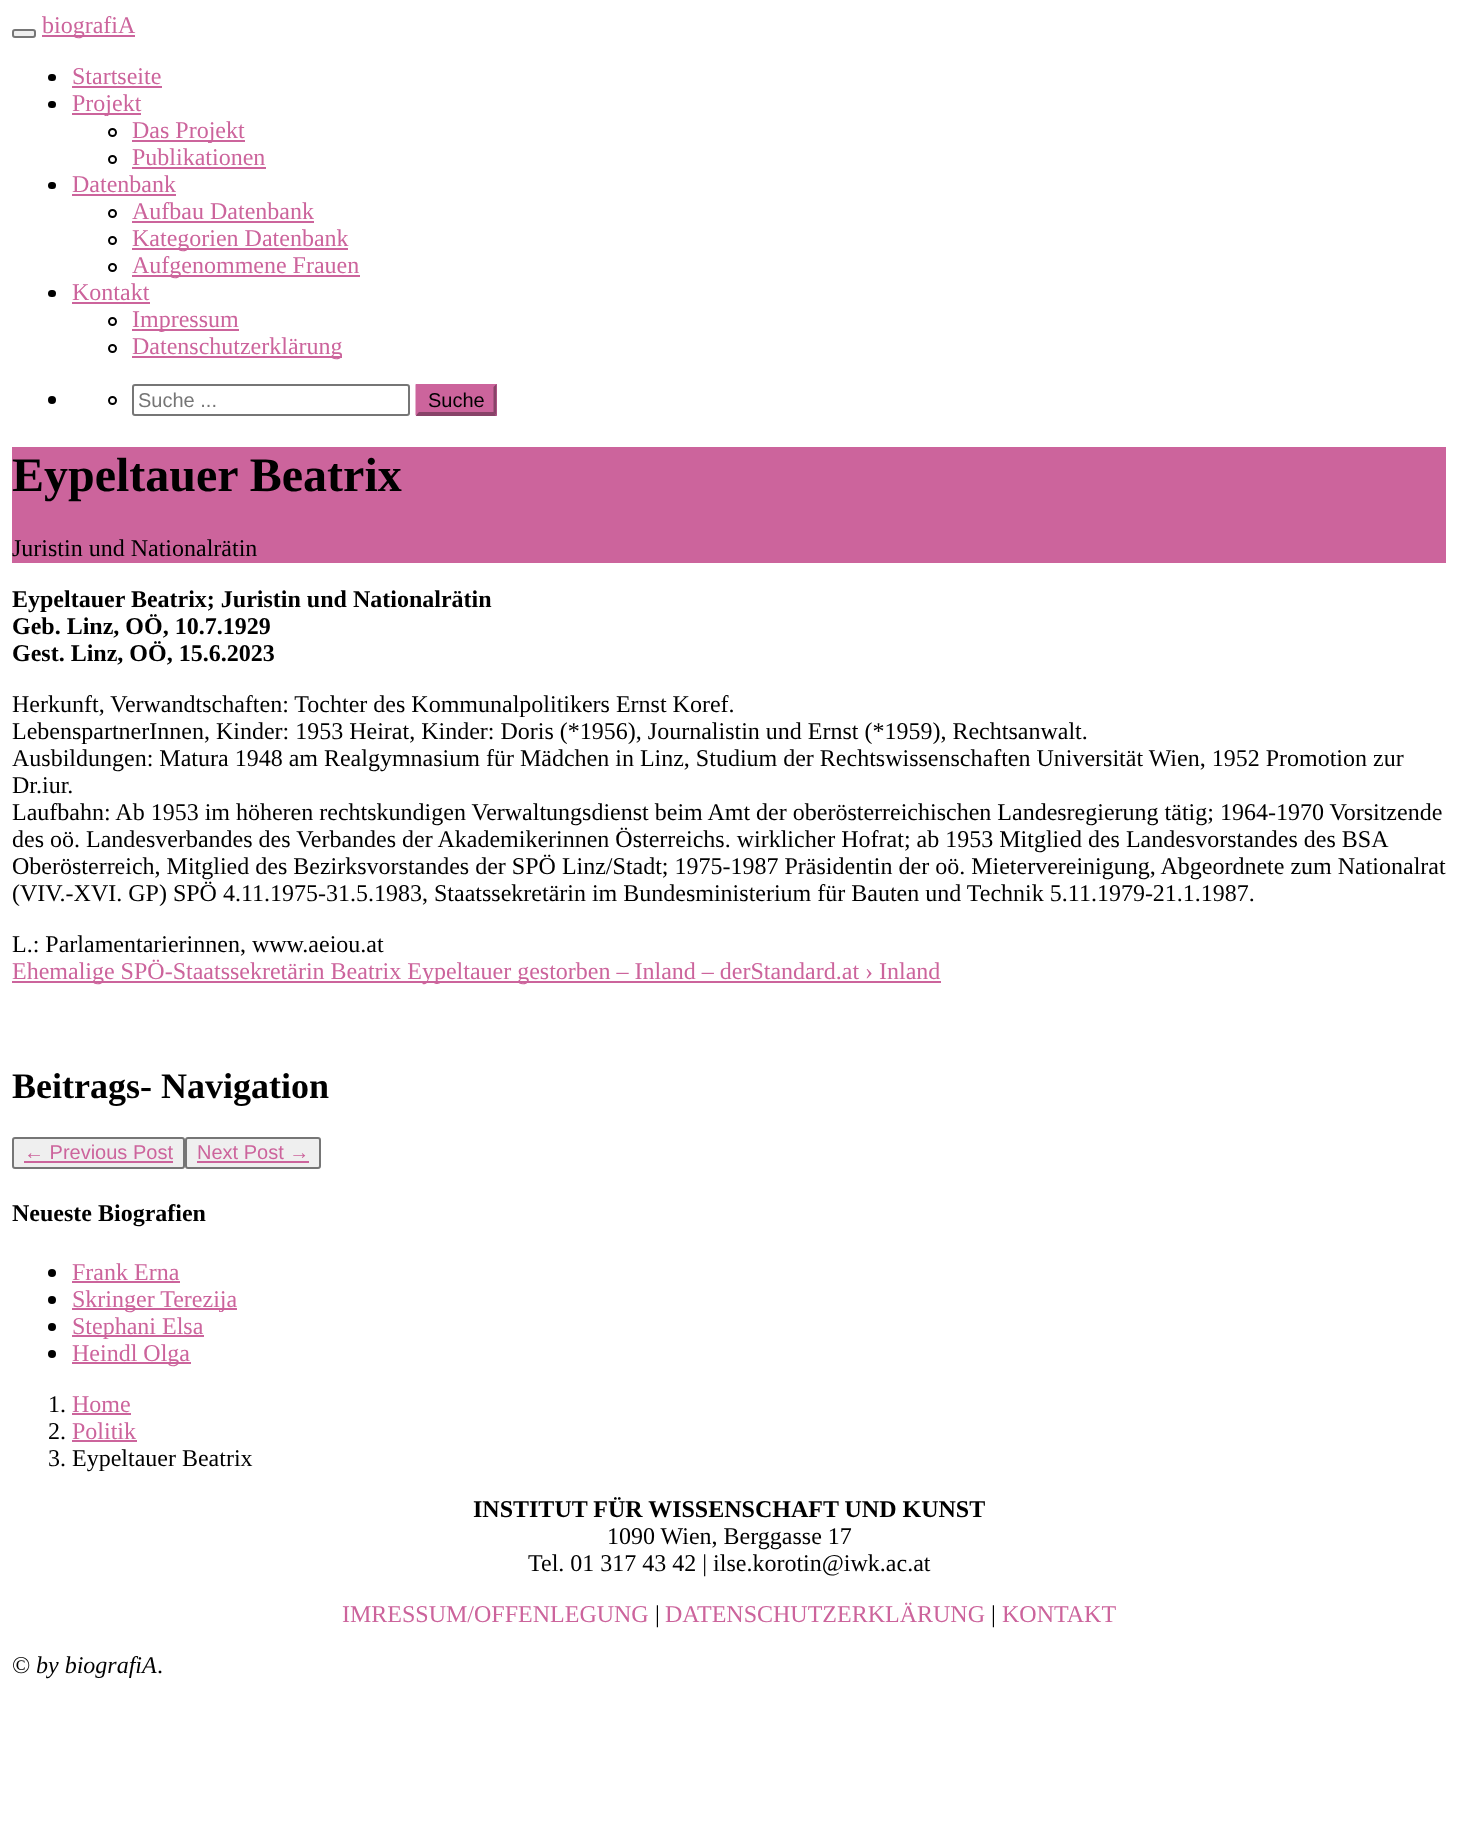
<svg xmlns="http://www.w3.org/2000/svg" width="1458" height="1825">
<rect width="100%" height="100%" fill="#fff"/>
<rect x="13" y="30" width="22" height="7" rx="2" fill="#efefef" stroke="#767676" stroke-width="2"/>
<rect x="42" y="35" width="93" height="2" fill="#cc649c"/>
<text x="42" y="33" style="font-family:Liberation Serif;font-size:24px;fill:#cc649c">biografiA</text>
<rect x="48" y="74" width="8" height="7" rx="3.5" fill="#000"/>
<text x="72" y="84" style="font-family:Liberation Serif;font-size:24px;fill:#cc649c">Startseite</text>
<rect x="72" y="86" width="90" height="2" fill="#cc649c"/>
<rect x="48" y="101" width="8" height="7" rx="3.5" fill="#000"/>
<rect x="72" y="113" width="69" height="2" fill="#cc649c"/>
<text x="72" y="111" style="font-family:Liberation Serif;font-size:24px;fill:#cc649c">Projekt</text>
<circle cx="112.5" cy="132.5" r="3.5" fill="none" stroke="#000" stroke-width="2"/>
<rect x="132" y="140" width="113" height="2" fill="#cc649c"/>
<text x="132" y="138" style="font-family:Liberation Serif;font-size:24px;fill:#cc649c">Das Projekt</text>
<circle cx="112.5" cy="159.5" r="3.5" fill="none" stroke="#000" stroke-width="2"/>
<text x="132" y="165" style="font-family:Liberation Serif;font-size:24px;fill:#cc649c">Publikationen</text>
<rect x="132" y="167" width="134" height="2" fill="#cc649c"/>
<rect x="48" y="182" width="8" height="7" rx="3.5" fill="#000"/>
<text x="72" y="192" style="font-family:Liberation Serif;font-size:24px;fill:#cc649c">Datenbank</text>
<rect x="72" y="194" width="104" height="2" fill="#cc649c"/>
<circle cx="112.5" cy="213.5" r="3.5" fill="none" stroke="#000" stroke-width="2"/>
<text x="132" y="219" style="font-family:Liberation Serif;font-size:24px;fill:#cc649c">Aufbau Datenbank</text>
<rect x="132" y="221" width="182" height="2" fill="#cc649c"/>
<circle cx="112.5" cy="240.5" r="3.5" fill="none" stroke="#000" stroke-width="2"/>
<rect x="132" y="248" width="216" height="2" fill="#cc649c"/>
<text x="132" y="246" style="font-family:Liberation Serif;font-size:24px;fill:#cc649c">Kategorien Datenbank</text>
<circle cx="112.5" cy="267.5" r="3.5" fill="none" stroke="#000" stroke-width="2"/>
<rect x="132" y="275" width="228" height="2" fill="#cc649c"/>
<text x="132" y="273" style="font-family:Liberation Serif;font-size:24px;fill:#cc649c">Aufgenommene Frauen</text>
<rect x="48" y="290" width="8" height="7" rx="3.5" fill="#000"/>
<text x="72" y="300" style="font-family:Liberation Serif;font-size:24px;fill:#cc649c">Kontakt</text>
<rect x="72" y="302" width="78" height="2" fill="#cc649c"/>
<circle cx="112.5" cy="321.5" r="3.5" fill="none" stroke="#000" stroke-width="2"/>
<rect x="132" y="329" width="107" height="2" fill="#cc649c"/>
<text x="132" y="327" style="font-family:Liberation Serif;font-size:24px;fill:#cc649c">Impressum</text>
<circle cx="112.5" cy="348.5" r="3.5" fill="none" stroke="#000" stroke-width="2"/>
<rect x="132" y="356" width="210" height="2" fill="#cc649c"/>
<text x="132" y="354" style="font-family:Liberation Serif;font-size:24px;fill:#cc649c">Datenschutzerklärung</text>
<circle cx="52" cy="400" r="4" fill="#000"/>
<circle cx="112.5" cy="400.5" r="3.5" fill="none" stroke="#000" stroke-width="2"/>
<rect x="133" y="385" width="276" height="30" rx="2" fill="none" stroke="#767676" stroke-width="2"/>
<text x="138" y="407" style="font-family:Liberation Sans;font-size:20px;fill:#757575">Suche ...</text>
<rect x="416" y="384" width="81" height="32" fill="#cc649c"/>
<path d="M496.5 384v31.5l-3-3v-25.5z" fill="#884368"/>
<path d="M496 416h-80l2-4h76z" fill="#884368"/>
<path d="M415.5 415.5v-31.5l3 3v25.5z" fill="#cc649c"/>
<text x="428" y="407" style="font-family:Liberation Sans;font-size:20px;fill:#000">Suche</text>
<rect x="12" y="447" width="1434" height="116" fill="#cc649c"/>
<text x="12" y="491" style="font-family:Liberation Serif;font-size:48px;font-weight:bold;fill:#000">Eypeltauer Beatrix</text>
<text x="12" y="556" style="font-family:Liberation Serif;font-size:24px;fill:#000">Juristin und Nationalrätin</text>
<text x="12" y="607" style="font-family:Liberation Serif;font-size:24px;font-weight:bold;fill:#000">Eypeltauer Beatrix; Juristin und Nationalrätin</text>
<text x="12" y="634" style="font-family:Liberation Serif;font-size:24px;font-weight:bold;fill:#000">Geb. Linz, OÖ, 10.7.1929</text>
<text x="12" y="661" style="font-family:Liberation Serif;font-size:24px;font-weight:bold;fill:#000">Gest. Linz, OÖ, 15.6.2023</text>
<text x="12" y="712" style="font-family:Liberation Serif;font-size:24px;fill:#000">Herkunft, Verwandtschaften: Tochter des Kommunalpolitikers Ernst Koref.</text>
<text x="12" y="739" style="font-family:Liberation Serif;font-size:24px;fill:#000">LebenspartnerInnen, Kinder: 1953 Heirat, Kinder: Doris (*1956), Journalistin und Ernst (*1959), Rechtsanwalt.</text>
<text x="12" y="766" style="font-family:Liberation Serif;font-size:24px;fill:#000">Ausbildungen: Matura 1948 am Realgymnasium für Mädchen in Linz, Studium der Rechtswissenschaften Universität Wien, 1952 Promotion zur</text>
<text x="12" y="793" style="font-family:Liberation Serif;font-size:24px;fill:#000">Dr.iur.</text>
<text x="12" y="820" style="font-family:Liberation Serif;font-size:24px;fill:#000">Laufbahn: Ab 1953 im höheren rechtskundigen Verwaltungsdienst beim Amt der oberösterreichischen Landesregierung tätig; 1964-1970 Vorsitzende</text>
<text x="12" y="847" style="font-family:Liberation Serif;font-size:24px;fill:#000">des oö. Landesverbandes des Verbandes der Akademikerinnen Österreichs. wirklicher Hofrat; ab 1953 Mitglied des Landesvorstandes des BSA</text>
<text x="12" y="874" style="font-family:Liberation Serif;font-size:24px;fill:#000">Oberösterreich, Mitglied des Bezirksvorstandes der SPÖ Linz/Stadt; 1975-1987 Präsidentin der oö. Mietervereinigung, Abgeordnete zum Nationalrat</text>
<text x="12" y="901" style="font-family:Liberation Serif;font-size:24px;fill:#000">(VIV.-XVI. GP) SPÖ 4.11.1975-31.5.1983, Staatssekretärin im Bundesministerium für Bauten und Technik 5.11.1979-21.1.1987.</text>
<text x="12" y="952" style="font-family:Liberation Serif;font-size:24px;fill:#000">L.: Parlamentarierinnen, www.aeiou.at</text>
<rect x="12" y="981" width="929" height="2" fill="#cc649c"/>
<text x="12" y="979" style="font-family:Liberation Serif;font-size:24px;fill:#cc649c">Ehemalige SPÖ-Staatssekretärin Beatrix Eypeltauer gestorben – Inland – derStandard.at › Inland</text>
<text x="12" y="1098" style="font-family:Liberation Serif;font-size:36px;font-weight:bold;fill:#000">Beitrags- Navigation</text>
<rect x="13" y="1138" width="171" height="30" rx="2" fill="#efefef" stroke="#767676" stroke-width="2"/>
<text x="24" y="1159" style="font-family:Liberation Sans;font-size:20px;fill:#cc649c">← Previous Post</text>
<rect x="24" y="1161" width="149" height="2" fill="#cc649c"/>
<rect x="186" y="1138" width="134" height="30" rx="2" fill="#efefef" stroke="#767676" stroke-width="2"/>
<text x="197" y="1159" style="font-family:Liberation Sans;font-size:20px;fill:#cc649c">Next Post →</text>
<rect x="197" y="1161" width="112" height="2" fill="#cc649c"/>
<text x="12" y="1221" style="font-family:Liberation Serif;font-size:24px;font-weight:bold;fill:#000">Neueste Biografien</text>
<circle cx="52" cy="1273" r="4" fill="#000"/>
<text x="72" y="1280" style="font-family:Liberation Serif;font-size:24px;fill:#cc649c">Frank Erna</text>
<rect x="72" y="1281" width="108" height="2" fill="#cc649c"/>
<circle cx="52" cy="1300" r="4" fill="#000"/>
<rect x="72" y="1308" width="165" height="2" fill="#cc649c"/>
<text x="72" y="1307" style="font-family:Liberation Serif;font-size:24px;fill:#cc649c">Skringer Terezija</text>
<circle cx="52" cy="1327" r="4" fill="#000"/>
<rect x="72" y="1335" width="132" height="2" fill="#cc649c"/>
<text x="72" y="1334" style="font-family:Liberation Serif;font-size:24px;fill:#cc649c">Stephani Elsa</text>
<circle cx="52" cy="1354" r="4" fill="#000"/>
<rect x="72" y="1362" width="119" height="2" fill="#cc649c"/>
<text x="72" y="1361" style="font-family:Liberation Serif;font-size:24px;fill:#cc649c">Heindl Olga</text>
<text x="48" y="1412" style="font-family:Liberation Serif;font-size:24px;fill:#000">1.</text>
<text x="72" y="1412" style="font-family:Liberation Serif;font-size:24px;fill:#cc649c">Home</text>
<rect x="72" y="1413" width="59" height="2" fill="#cc649c"/>
<text x="48" y="1439" style="font-family:Liberation Serif;font-size:24px;fill:#000">2.</text>
<text x="72" y="1439" style="font-family:Liberation Serif;font-size:24px;fill:#cc649c">Politik</text>
<rect x="72" y="1440" width="65" height="2" fill="#cc649c"/>
<text x="48" y="1466" style="font-family:Liberation Serif;font-size:24px;fill:#000">3. Eypeltauer Beatrix</text>
<text x="473" y="1517" style="font-family:Liberation Serif;font-size:24px;font-weight:bold;fill:#000">INSTITUT FÜR WISSENSCHAFT UND KUNST</text>
<text x="607" y="1544" style="font-family:Liberation Serif;font-size:24px;fill:#000">1090 Wien, Berggasse 17</text>
<text x="528" y="1571" style="font-family:Liberation Serif;font-size:24px;fill:#000">Tel. 01 317 43 42 | ilse.korotin@iwk.ac.at</text>
<text x="342" y="1622" style="font-family:Liberation Serif;font-size:24px;fill:#cc649c">IMRESSUM/OFFENLEGUNG</text>
<text x="655" y="1622" style="font-family:Liberation Serif;font-size:24px;fill:#000">|</text>
<text x="665" y="1622" style="font-family:Liberation Serif;font-size:24px;fill:#cc649c">DATENSCHUTZERKLÄRUNG</text>
<text x="991" y="1622" style="font-family:Liberation Serif;font-size:24px;fill:#000">|</text>
<text x="1002" y="1622" style="font-family:Liberation Serif;font-size:24px;fill:#cc649c">KONTAKT</text>
<text x="12" y="1673" style="font-family:Liberation Serif;font-size:24px;fill:#000">©</text>
<text x="36" y="1673" style="font-family:Liberation Serif;font-size:24px;font-style:italic;fill:#000">by biografiA</text>
<text x="157" y="1673" style="font-family:Liberation Serif;font-size:24px;fill:#000">.</text>
</svg>
